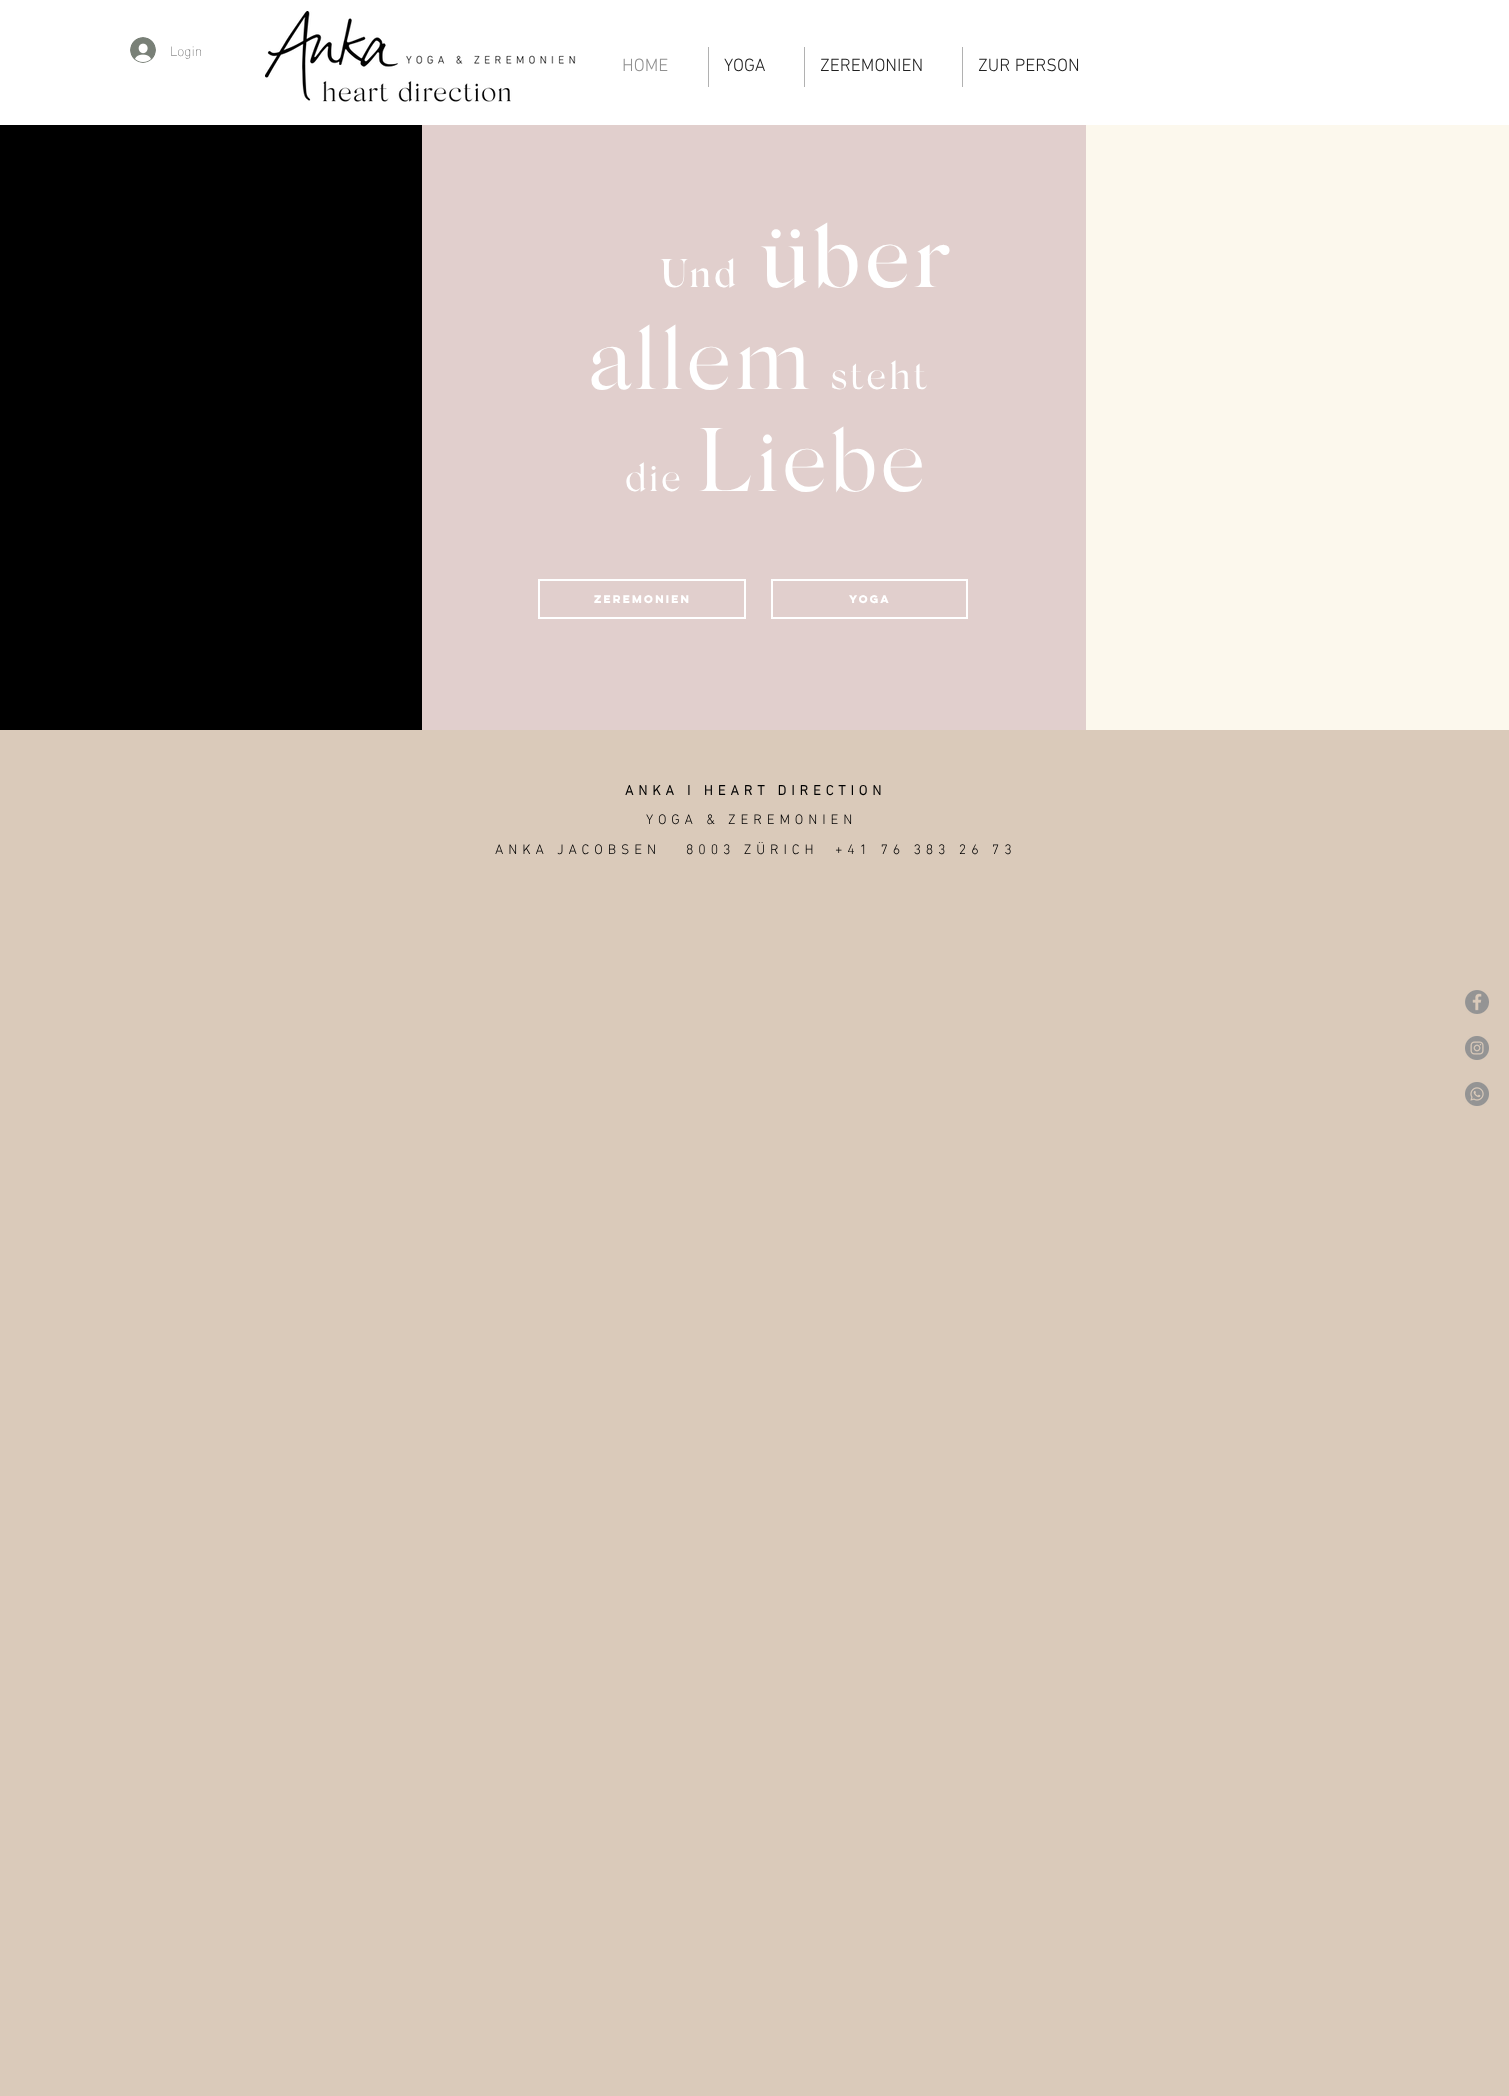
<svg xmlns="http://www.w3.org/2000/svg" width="1509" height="2096">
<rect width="100%" height="100%" fill="#dacaba"/>
<rect width="1509" height="125" fill="#fff"/>
<image x="130" y="37" width="26" height="26" href="media/1.png"/>
<text x="170" y="56" style="font-family:'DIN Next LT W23';font-size:14px;font-weight:200;fill:#595959">Login</text>
<image x="265" y="11" width="311" height="91" href="media/2.png"/>
<text x="622" y="71" style="font-family:'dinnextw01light';font-size:18px;font-weight:300;fill:#909090">HOME</text>
<rect x="708" y="47" width="1" height="40" fill="#b1b1b1"/>
<text x="724" y="71" style="font-family:'dinnextw01light';font-size:18px;font-weight:300;fill:#212121">YOGA</text>
<rect x="804" y="47" width="1" height="40" fill="#b1b1b1"/>
<text x="820" y="71" style="font-family:'dinnextw01light';font-size:18px;font-weight:300;fill:#212121">ZEREMONIEN</text>
<rect x="962" y="47" width="1" height="40" fill="#b1b1b1"/>
<text x="978" y="71" style="font-family:'dinnextw01light';font-size:18px;font-weight:300;fill:#212121">ZUR PERSON</text>
<rect y="125" width="422" height="605" fill="#000"/>
<rect x="422" y="125" width="664" height="605" fill="#e1cfcd"/>
<text x="660" y="287" style="font-family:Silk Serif;font-size:40px;font-weight:500;letter-spacing:2.25px;fill:#fff">Und</text>
<text x="760" y="287" style="font-family:Silk Serif;font-size:90px;font-weight:500;letter-spacing:2.25px;fill:#fff">über</text>
<text x="587" y="389" style="font-family:Silk Serif;font-size:90px;letter-spacing:2.25px;fill:#fff">allem</text>
<text x="830" y="389" style="font-family:Silk Serif;font-size:40px;letter-spacing:2.25px;fill:#fff">steht</text>
<text x="625" y="491" style="font-family:Silk Serif;font-size:40px;letter-spacing:1.5px;fill:#fff">die</text>
<text x="698" y="491" style="font-family:Silk Serif;font-size:90px;letter-spacing:1.5px;fill:#fff">Liebe</text>
<rect x="539" y="580" width="206" height="38" fill="none" stroke="#fff" stroke-width="2"/>
<text x="594" y="603" style="font-family:'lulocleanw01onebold';font-size:10px;font-weight:bold;fill:#fff">Zeremonien</text>
<rect x="772" y="580" width="195" height="38" fill="none" stroke="#fff" stroke-width="2"/>
<text x="849" y="603" style="font-family:'lulocleanw01onebold';font-size:10px;font-weight:bold;fill:#fff">Yoga</text>
<rect x="1086" y="125" width="423" height="605" fill="#fcf8ed"/>
<text x="625" y="795" style="font-family:'dinnextw01light';font-size:14px;font-weight:bold;letter-spacing:4.9px;fill:#000">ANKA I HEART DIRECTION</text>
<text x="646" y="824" style="font-family:'dinnextw01light';font-size:14px;font-weight:300;letter-spacing:4.9px;fill:#000">YOGA &amp; ZEREMONIEN</text>
<text x="495" y="854" style="font-family:'dinnextw01light';font-size:14px;font-weight:300;letter-spacing:4.9px;fill:#000" xml:space="preserve">ANKA JACOBSEN   8003 ZÜRICH</text>
<text x="835" y="854" style="font-family:'dinnextw01light';font-size:14px;font-weight:300;letter-spacing:4.9px;fill:#000">+41 76 383 26 73</text>
<image x="1465" y="990" width="24" height="24" href="media/3.png"/>
<image x="1465" y="1036" width="24" height="24" href="media/4.png"/>
<image x="1465" y="1082" width="24" height="24" href="media/5.png"/>
</svg>
